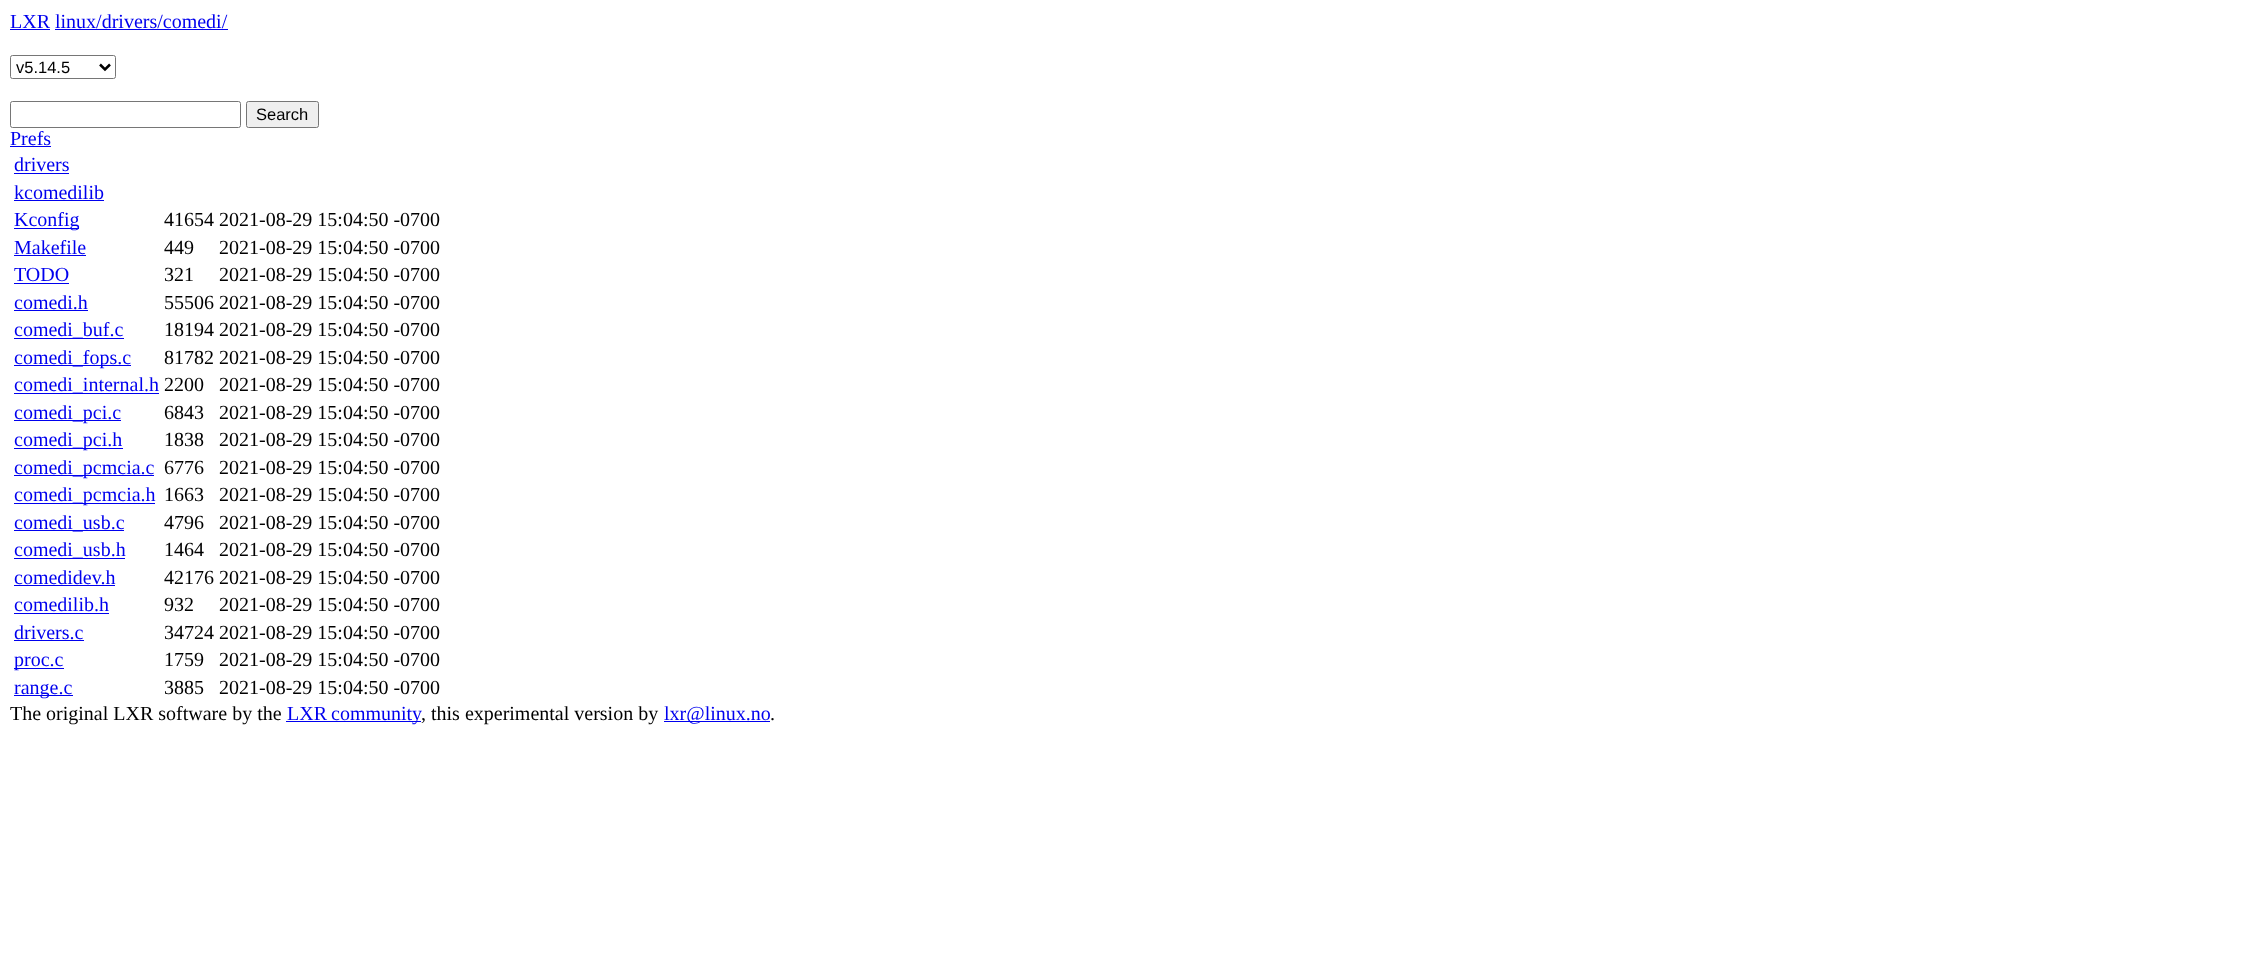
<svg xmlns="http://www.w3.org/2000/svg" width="2243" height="962">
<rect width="100%" height="100%" fill="#fff"/>
<text x="10" y="28" style="font-family:Liberation Serif;font-size:20px;fill:#00e">LXR linux/drivers/comedi/</text>
<rect x="10" y="29" width="40" height="1" fill="#00e"/>
<rect x="55" y="29" width="173" height="1" fill="#00e"/>
<rect x="10.5" y="55.5" width="105" height="23" rx="2" fill="none" stroke="#767676"/>
<path d="M100 64.5l5 5l5-5" fill="none" stroke="#000" stroke-width="2.5"/>
<text x="16" y="73" style="font-family:Liberation Sans;font-size:16.5px;fill:#000">v5.14.5</text>
<rect x="10.5" y="101.5" width="230" height="26" rx="2" fill="none" stroke="#767676"/>
<rect x="246.5" y="101.5" width="72" height="26" rx="2" fill="#efefef" stroke="#767676"/>
<text x="256" y="120" style="font-family:Liberation Sans;font-size:16.5px;fill:#000">Search</text>
<text x="10" y="145" style="font-family:Liberation Serif;font-size:20px;fill:#00e">Prefs</text>
<rect x="10" y="146" width="41" height="1" fill="#00e"/>
<text x="14" y="171" style="font-family:Liberation Serif;font-size:20px;fill:#00e">drivers</text>
<rect x="14" y="173" width="55" height="1" fill="#00e"/>
<text x="14" y="199" style="font-family:Liberation Serif;font-size:20px;fill:#00e">kcomedilib</text>
<rect x="14" y="200" width="90" height="1" fill="#00e"/>
<rect x="14" y="228" width="65" height="1" fill="#00e"/>
<text x="14" y="226" style="font-family:Liberation Serif;font-size:20px;fill:#00e">Kconfig</text>
<text x="164" y="226" style="font-family:Liberation Serif;font-size:20px;fill:#000">41654 2021-08-29 15:04:50 -0700</text>
<text x="14" y="254" style="font-family:Liberation Serif;font-size:20px;fill:#00e">Makefile</text>
<rect x="14" y="255" width="72" height="1" fill="#00e"/>
<text x="164" y="254" style="font-family:Liberation Serif;font-size:20px;fill:#000">449</text>
<text x="219" y="254" style="font-family:Liberation Serif;font-size:20px;fill:#000">2021-08-29 15:04:50 -0700</text>
<text x="14" y="281" style="font-family:Liberation Serif;font-size:20px;fill:#00e">TODO</text>
<rect x="14" y="283" width="55" height="1" fill="#00e"/>
<text x="164" y="281" style="font-family:Liberation Serif;font-size:20px;fill:#000">321</text>
<text x="219" y="281" style="font-family:Liberation Serif;font-size:20px;fill:#000">2021-08-29 15:04:50 -0700</text>
<text x="14" y="309" style="font-family:Liberation Serif;font-size:20px;fill:#00e">comedi.h</text>
<rect x="14" y="310" width="74" height="1" fill="#00e"/>
<text x="164" y="309" style="font-family:Liberation Serif;font-size:20px;fill:#000">55506 2021-08-29 15:04:50 -0700</text>
<rect x="14" y="338" width="110" height="1" fill="#00e"/>
<text x="14" y="336" style="font-family:Liberation Serif;font-size:20px;fill:#00e">comedi_buf.c</text>
<text x="164" y="336" style="font-family:Liberation Serif;font-size:20px;fill:#000">18194 2021-08-29 15:04:50 -0700</text>
<rect x="14" y="365" width="117" height="1" fill="#00e"/>
<text x="14" y="364" style="font-family:Liberation Serif;font-size:20px;fill:#00e">comedi_fops.c</text>
<text x="164" y="364" style="font-family:Liberation Serif;font-size:20px;fill:#000">81782 2021-08-29 15:04:50 -0700</text>
<rect x="14" y="393" width="145" height="1" fill="#00e"/>
<text x="14" y="391" style="font-family:Liberation Serif;font-size:20px;fill:#00e">comedi_internal.h</text>
<text x="164" y="391" style="font-family:Liberation Serif;font-size:20px;fill:#000">2200</text>
<text x="219" y="391" style="font-family:Liberation Serif;font-size:20px;fill:#000">2021-08-29 15:04:50 -0700</text>
<rect x="14" y="420" width="107" height="1" fill="#00e"/>
<text x="14" y="419" style="font-family:Liberation Serif;font-size:20px;fill:#00e">comedi_pci.c</text>
<text x="164" y="419" style="font-family:Liberation Serif;font-size:20px;fill:#000">6843</text>
<text x="219" y="419" style="font-family:Liberation Serif;font-size:20px;fill:#000">2021-08-29 15:04:50 -0700</text>
<rect x="14" y="448" width="109" height="1" fill="#00e"/>
<text x="14" y="446" style="font-family:Liberation Serif;font-size:20px;fill:#00e">comedi_pci.h</text>
<text x="164" y="446" style="font-family:Liberation Serif;font-size:20px;fill:#000">1838</text>
<text x="219" y="446" style="font-family:Liberation Serif;font-size:20px;fill:#000">2021-08-29 15:04:50 -0700</text>
<rect x="14" y="475" width="140" height="1" fill="#00e"/>
<text x="14" y="474" style="font-family:Liberation Serif;font-size:20px;fill:#00e">comedi_pcmcia.c</text>
<text x="164" y="474" style="font-family:Liberation Serif;font-size:20px;fill:#000">6776</text>
<text x="219" y="474" style="font-family:Liberation Serif;font-size:20px;fill:#000">2021-08-29 15:04:50 -0700</text>
<rect x="14" y="503" width="141" height="1" fill="#00e"/>
<text x="14" y="501" style="font-family:Liberation Serif;font-size:20px;fill:#00e">comedi_pcmcia.h</text>
<text x="164" y="501" style="font-family:Liberation Serif;font-size:20px;fill:#000">1663</text>
<text x="219" y="501" style="font-family:Liberation Serif;font-size:20px;fill:#000">2021-08-29 15:04:50 -0700</text>
<rect x="14" y="530" width="110" height="1" fill="#00e"/>
<text x="14" y="529" style="font-family:Liberation Serif;font-size:20px;fill:#00e">comedi_usb.c</text>
<text x="164" y="529" style="font-family:Liberation Serif;font-size:20px;fill:#000">4796</text>
<text x="219" y="529" style="font-family:Liberation Serif;font-size:20px;fill:#000">2021-08-29 15:04:50 -0700</text>
<rect x="14" y="558" width="111" height="1" fill="#00e"/>
<text x="14" y="556" style="font-family:Liberation Serif;font-size:20px;fill:#00e">comedi_usb.h</text>
<text x="164" y="556" style="font-family:Liberation Serif;font-size:20px;fill:#000">1464</text>
<text x="219" y="556" style="font-family:Liberation Serif;font-size:20px;fill:#000">2021-08-29 15:04:50 -0700</text>
<text x="14" y="584" style="font-family:Liberation Serif;font-size:20px;fill:#00e">comedidev.h</text>
<rect x="14" y="585" width="101" height="1" fill="#00e"/>
<text x="164" y="584" style="font-family:Liberation Serif;font-size:20px;fill:#000">42176 2021-08-29 15:04:50 -0700</text>
<text x="14" y="611" style="font-family:Liberation Serif;font-size:20px;fill:#00e">comedilib.h</text>
<rect x="14" y="613" width="95" height="1" fill="#00e"/>
<text x="164" y="611" style="font-family:Liberation Serif;font-size:20px;fill:#000">932</text>
<text x="219" y="611" style="font-family:Liberation Serif;font-size:20px;fill:#000">2021-08-29 15:04:50 -0700</text>
<text x="14" y="639" style="font-family:Liberation Serif;font-size:20px;fill:#00e">drivers.c</text>
<rect x="14" y="640" width="70" height="1" fill="#00e"/>
<text x="164" y="639" style="font-family:Liberation Serif;font-size:20px;fill:#000">34724 2021-08-29 15:04:50 -0700</text>
<rect x="14" y="668" width="50" height="1" fill="#00e"/>
<text x="14" y="666" style="font-family:Liberation Serif;font-size:20px;fill:#00e">proc.c</text>
<text x="164" y="666" style="font-family:Liberation Serif;font-size:20px;fill:#000">1759</text>
<text x="219" y="666" style="font-family:Liberation Serif;font-size:20px;fill:#000">2021-08-29 15:04:50 -0700</text>
<rect x="14" y="695" width="59" height="1" fill="#00e"/>
<text x="14" y="694" style="font-family:Liberation Serif;font-size:20px;fill:#00e">range.c</text>
<text x="164" y="694" style="font-family:Liberation Serif;font-size:20px;fill:#000">3885</text>
<text x="219" y="694" style="font-family:Liberation Serif;font-size:20px;fill:#000">2021-08-29 15:04:50 -0700</text>
<text x="10" y="720" style="font-family:Liberation Serif;font-size:20px;fill:#000">The original LXR software by the</text>
<rect x="286" y="721" width="135" height="1" fill="#00e"/>
<text x="287" y="720" word-spacing="-1" style="font-family:Liberation Serif;font-size:20px;fill:#00e">LXR community</text>
<text x="421" y="720" style="font-family:Liberation Serif;font-size:20px;fill:#000">, this experimental version by</text>
<rect x="664" y="721" width="106" height="1" fill="#00e"/>
<text x="664" y="720" style="font-family:Liberation Serif;font-size:20px;fill:#00e">lxr@linux.no</text>
<text x="770" y="720" style="font-family:Liberation Serif;font-size:20px;fill:#000">.</text>
</svg>
